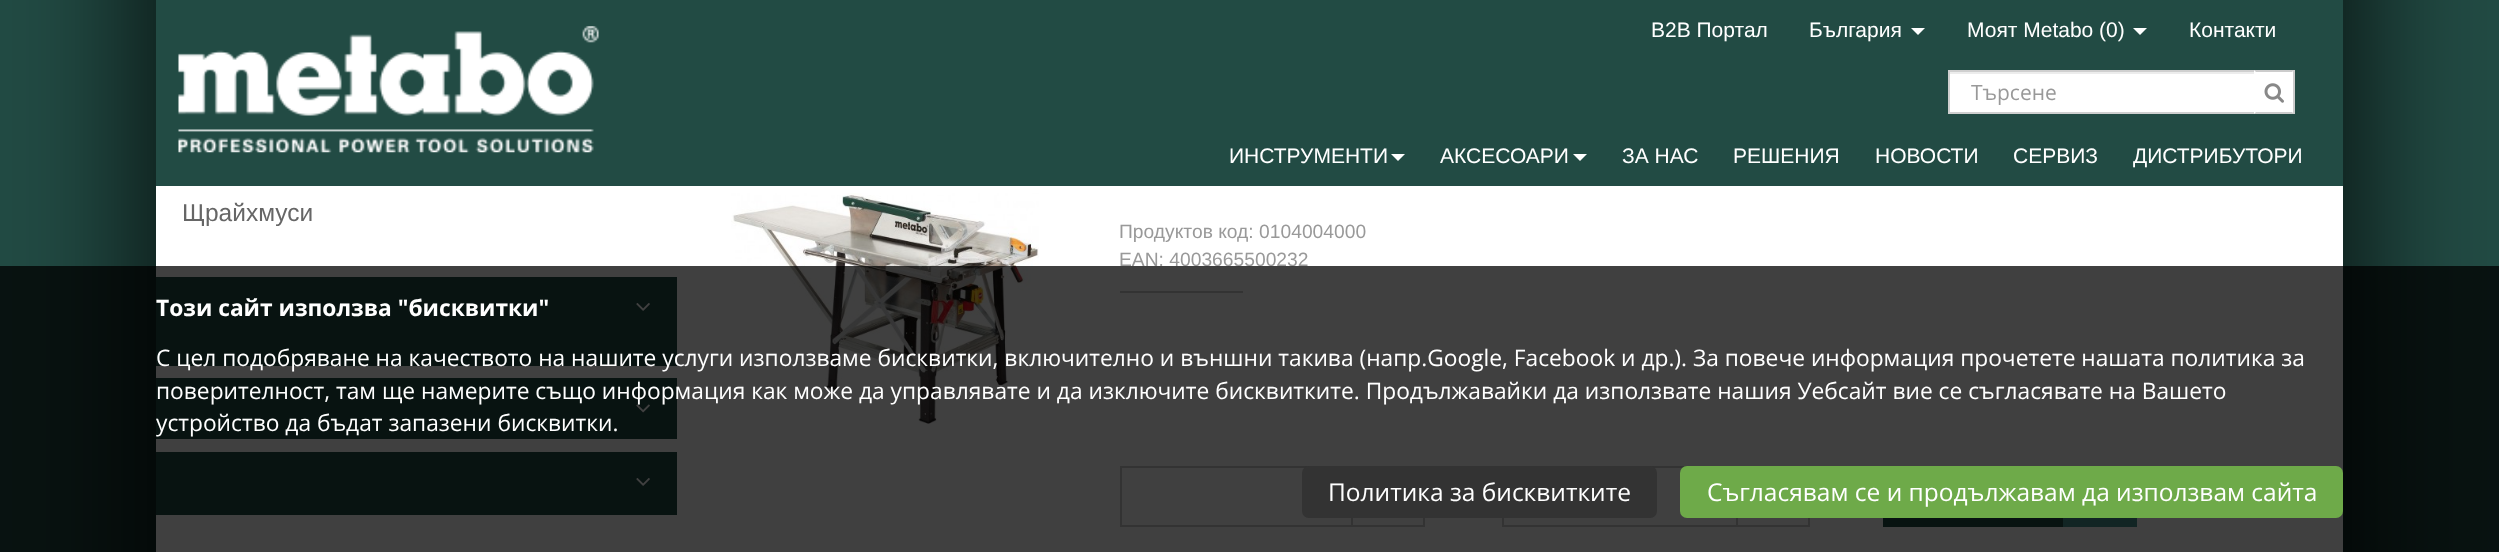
<svg xmlns="http://www.w3.org/2000/svg" width="2499" height="552">
<rect width="100%" height="100%" fill="#224b44"/>
<rect x="138" y="-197" width="2223" height="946" fill="#000000bf" filter="blur(65.5px)"/>
<rect x="156" width="2187" height="186" fill="#224b44"/>
<image x="178" y="26" width="421" height="127" href="media/1.png"/>
<text x="1651" y="37" style="font-family:Liberation Sans;font-size:21px;fill:#fff">B2B Портал</text>
<text x="1809" y="37" style="font-family:Liberation Sans;font-size:21px;fill:#fff">България</text>
<path d="M1911 28h14l-7 7z" fill="#fff"/>
<text x="1967" y="37" style="font-family:Liberation Sans;font-size:21px;fill:#fff">Моят Metabo (0)</text>
<path d="M2133 28h14l-7 7z" fill="#fff"/>
<text x="2189" y="37" style="font-family:Liberation Sans;font-size:21px;fill:#fff">Контакти</text>
<rect x="1950" y="74" width="304" height="38" fill="#fff"/>
<rect x="1950" y="72" width="304" height="2" fill="#ececec"/>
<rect x="1949" y="71" width="306" height="42" fill="none" stroke="#cfcfcf" stroke-width="2"/>
<text x="1971" y="100" style="font-family:Open Sans;font-size:21px;fill:#999">Търсене</text>
<rect x="2254" y="70" width="39" height="44" fill="#fff"/>
<path d="M2254 70h40l-2 2h-36z" fill="#ccc"/>
<rect x="2293" y="70" width="2" height="44" fill="#ccc"/>
<path d="M2294 114h-40l2-2h36z" fill="#ccc"/>
<image x="2264" y="83" width="20" height="20" href="media/2.png"/>
<text x="1229" y="163" style="font-family:Liberation Sans;font-size:21px;fill:#fff">ИНСТРУМЕНТИ</text>
<path d="M1391 154h14l-7 7z" fill="#fff"/>
<text x="1440" y="163" style="font-family:Liberation Sans;font-size:21px;fill:#fff">АКСЕСОАРИ</text>
<path d="M1573 154h14l-7 7z" fill="#fff"/>
<text x="1622" y="163" style="font-family:Liberation Sans;font-size:21px;fill:#fff">ЗА НАС</text>
<text x="1733" y="163" style="font-family:Liberation Sans;font-size:21px;fill:#fff">РЕШЕНИЯ</text>
<text x="1875" y="163" style="font-family:Liberation Sans;font-size:21px;fill:#fff">НОВОСТИ</text>
<text x="2013" y="163" style="font-family:Liberation Sans;font-size:21px;fill:#fff">СЕРВИЗ</text>
<text x="2133" y="163" style="font-family:Liberation Sans;font-size:21px;fill:#fff">ДИСТРИБУТОРИ</text>
<rect x="156" y="186" width="2187" height="366" fill="#fff"/>
<text x="182" y="221" style="font-family:Liberation Sans;font-size:24.5px;fill:#666">Щрайхмуси</text>
<rect x="156" y="277" width="521" height="89" fill="#224b44"/>
<image x="636" y="303" width="14" height="8" href="media/3.png"/>
<rect x="156" y="378" width="521" height="61" fill="#224b44"/>
<image x="636" y="404" width="14" height="9" href="media/4.png"/>
<rect x="156" y="452" width="521" height="63" fill="#224b44"/>
<image x="636" y="478" width="14" height="8" href="media/3.png"/>
<image x="731" y="193" width="308" height="231" href="media/5.png"/>
<text x="1119" y="238" style="font-family:Liberation Sans;font-size:19.25px;fill:#999">Продуктов код: 0104004000</text>
<text x="1119" y="266" style="font-family:Liberation Sans;font-size:19.25px;fill:#999">EAN: 4003665500232</text>
<rect x="1120" y="291" width="123" height="2" fill="#ccc"/>
<rect x="1121" y="467" width="231" height="59" fill="none" stroke="#ccc" stroke-width="2"/>
<rect x="1352" y="467" width="72" height="59" fill="none" stroke="#ccc" stroke-width="2"/>
<rect x="1503" y="467" width="234" height="59" fill="none" stroke="#ccc" stroke-width="2"/>
<rect x="1737" y="467" width="72" height="59" fill="none" stroke="#ccc" stroke-width="2"/>
<rect x="1883" y="518" width="180" height="9" fill="#224b44"/>
<rect x="2063" y="518" width="74" height="9" fill="#479391"/>
<rect y="266" width="2499" height="286" fill="#000000bf"/>
<text x="156" y="316" style="font-family:Open Sans;font-size:22.75px;font-weight:bold;fill:#fff">Този сайт използва "бисквитки"</text>
<text x="156" y="366" style="font-family:Open Sans;font-size:22.75px;fill:#fff">С цел подобряване на качеството на нашите услуги използваме бисквитки, включително и външни такива (напр.Google, Facebook и др.). За повече информация прочетете нашата политика за</text>
<text x="156" y="399" style="font-family:Open Sans;font-size:22.75px;fill:#fff">поверителност, там ще намерите също информация как може да управлявате и да изключите бисквитките. Продължавайки да използвате нашия Уебсайт вие се съгласявате на Вашето</text>
<text x="156" y="431" style="font-family:Open Sans;font-size:22.75px;fill:#fff">устройство да бъдат запазени бисквитки.</text>
<rect x="1302" y="466" width="355" height="52" rx="7" fill="#333"/>
<text x="1328" y="501" style="font-family:Open Sans;font-size:24.5px;fill:#fff">Политика за бисквитките</text>
<rect x="1680" y="466" width="663" height="52" rx="7" fill="#6eaa49"/>
<text x="1707" y="501" style="font-family:Open Sans;font-size:24.5px;fill:#fff">Съгласявам се и продължавам да използвам сайта</text>
</svg>
